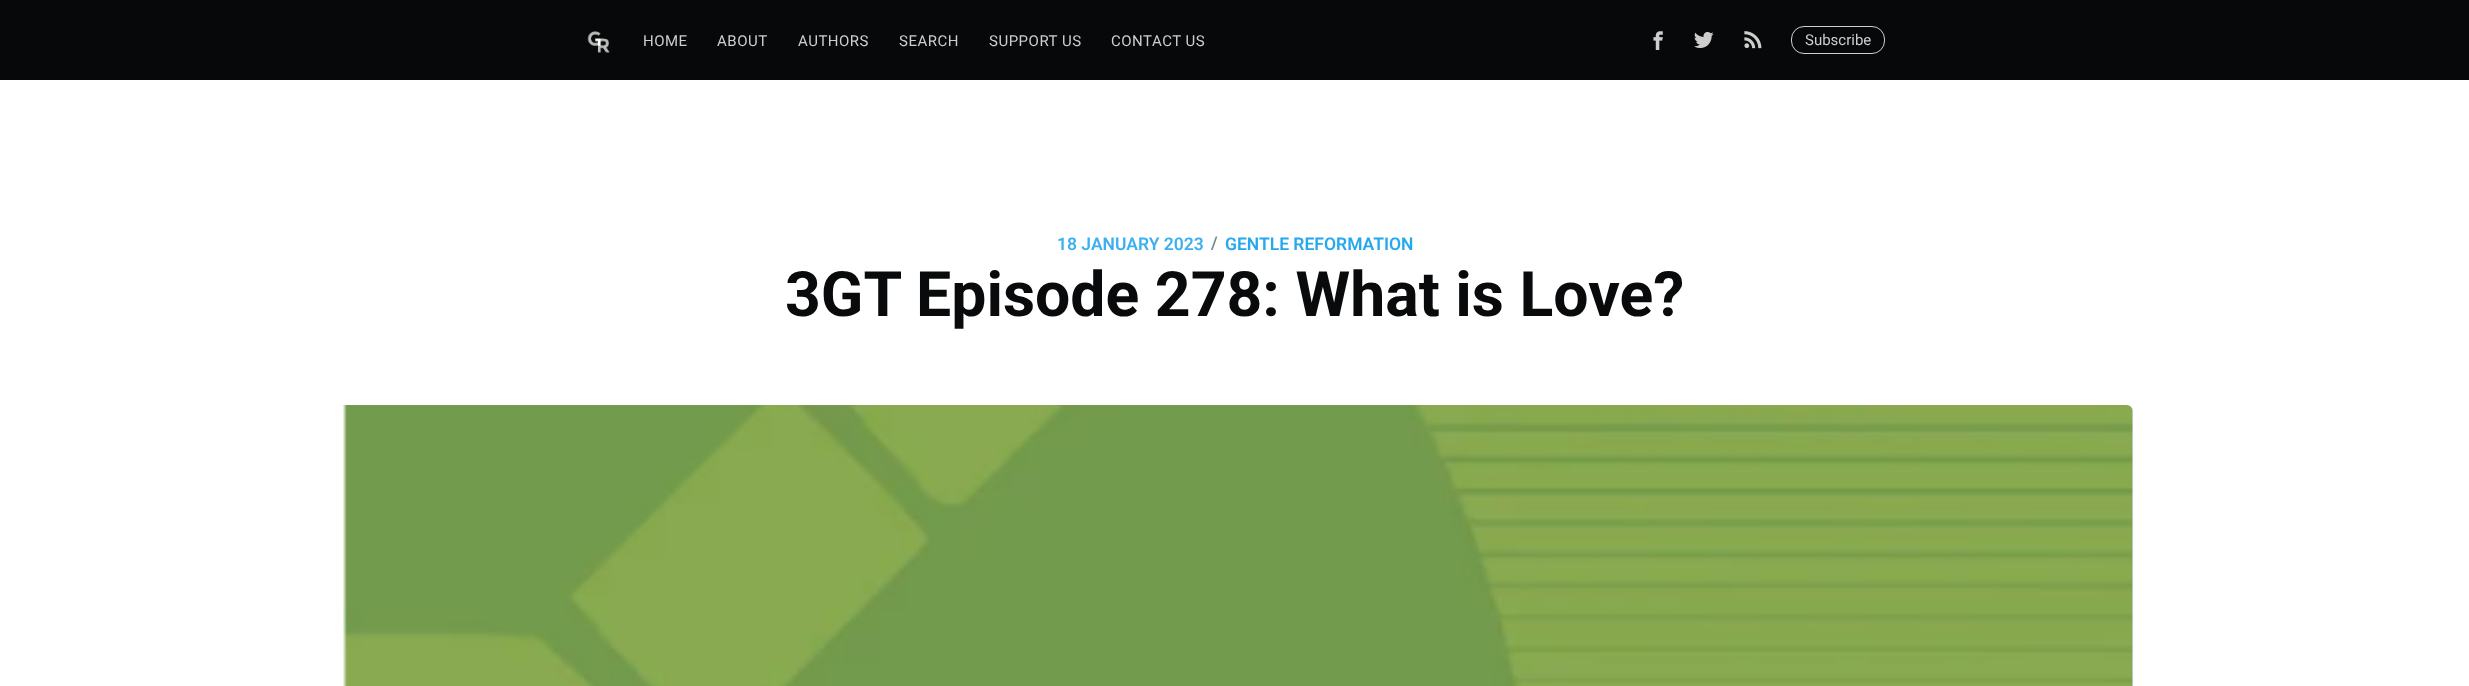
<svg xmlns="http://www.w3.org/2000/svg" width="2469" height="686">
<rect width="100%" height="100%" fill="#070809"/>
<image x="587" y="31" width="23" height="22" href="media/1.png"/>
<text x="643" y="46" style="font-family:Roboto;font-size:15px;letter-spacing:0.5px;fill:#cdcece">HOME</text>
<text x="717" y="46" style="font-family:Roboto;font-size:15px;letter-spacing:0.5px;fill:#cdcece">ABOUT</text>
<text x="798" y="46" style="font-family:Roboto;font-size:15px;letter-spacing:0.5px;fill:#cdcece">AUTHORS</text>
<text x="899" y="46" style="font-family:Roboto;font-size:15px;letter-spacing:0.5px;fill:#cdcece">SEARCH</text>
<text x="989" y="46" style="font-family:Roboto;font-size:15px;letter-spacing:0.5px;fill:#cdcece">SUPPORT US</text>
<text x="1111" y="46" style="font-family:Roboto;font-size:15px;letter-spacing:0.5px;fill:#cdcece">CONTACT US</text>
<image x="1653" y="31" width="10" height="19" href="media/2.png"/>
<image x="1694" y="32" width="20" height="16" href="media/3.png"/>
<image x="1744" y="31" width="18" height="18" href="media/4.png"/>
<rect x="1791.5" y="26.5" width="93" height="27" rx="12.5" fill="none" stroke="#cdcece"/>
<text x="1805" y="45" style="font-family:Roboto;font-size:15px;fill:#cdcece">Subscribe</text>
<rect y="80" width="2469" height="606" fill="#fff"/>
<text x="1057" y="250" style="font-family:Roboto;font-size:17.5px;font-weight:600;fill:#3eb0ef">18 JANUARY 2023</text>
<text x="1211" y="249" style="font-family:Roboto;font-size:17.5px;font-weight:600;fill:#738a94">/</text>
<text x="1225" y="250" style="font-family:Roboto;font-size:17.5px;font-weight:600;fill:#26a8ed">GENTLE REFORMATION</text>
<text x="785" y="316" style="font-family:Roboto;font-size:62.5px;font-weight:bold;fill:#090a0b">3GT Episode 278: What is Love?</text>
<rect x="338" y="405" width="1795" height="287" rx="6" fill="#c5d2d9"/>
<image x="338" y="405" width="1795" height="281" href="media/5.png"/>
</svg>
